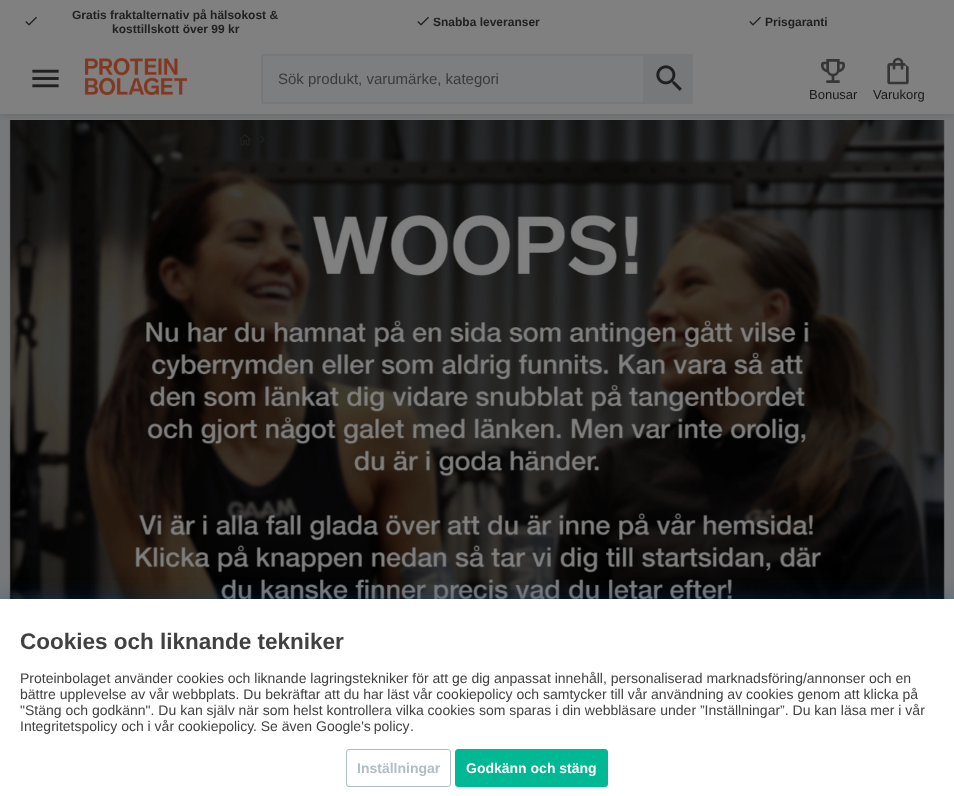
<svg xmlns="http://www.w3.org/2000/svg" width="954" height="796">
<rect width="100%" height="100%" fill="#767879"/>
<image x="9" y="120" width="936" height="479" href="media/7.png"/>
<rect width="954" height="114" fill="#00000026" filter="blur(3px)"/>
<rect width="954" height="114" fill="#808080"/>
<image x="25" y="16" width="12" height="10" href="media/1.png"/>
<text x="72" y="19" style="font-family:Liberation Sans;font-size:12px;font-weight:bold;fill:#212121">Gratis fraktalternativ på hälsokost &amp;</text>
<text x="112" y="33" style="font-family:Liberation Sans;font-size:12px;font-weight:bold;fill:#212121">kosttillskott över 99 kr</text>
<image x="417" y="16" width="12" height="10" href="media/1.png"/>
<text x="433" y="26" style="font-family:Liberation Sans;font-size:12px;font-weight:bold;fill:#212121">Snabba leveranser</text>
<image x="749" y="16" width="12" height="10" href="media/1.png"/>
<text x="765" y="26" style="font-family:Liberation Sans;font-size:12px;font-weight:bold;fill:#212121">Prisgaranti</text>
<image x="32" y="69" width="27" height="19" href="media/2.png"/>
<image x="85" y="58" width="102" height="37" href="media/3.png"/>
<rect x="262" y="55" width="430" height="48" rx="2" fill="#7c7e80" stroke="#767879" stroke-width="2"/>
<rect x="643" y="54" width="50" height="50" rx="3" fill="#767879"/>
<text x="278" y="84" style="font-family:Liberation Sans;font-size:15px;fill:#3b3b3b">Sök produkt, varumärke, kategori</text>
<image x="656" y="65" width="26" height="26" href="media/4.png"/>
<image x="821" y="59" width="24" height="24" href="media/5.png"/>
<text x="809" y="99" style="font-family:Liberation Sans;font-size:13px;fill:#171a1b">Bonusar</text>
<image x="887" y="57" width="22" height="28" href="media/6.png"/>
<circle cx="913.5" cy="57.5" r="10.5" fill="#808080"/>
<text x="873" y="99" style="font-family:Liberation Sans;font-size:13px;fill:#171a1b">Varukorg</text>
<image x="239" y="134" width="13" height="12" href="media/8.png"/>
<image x="260" y="135" width="5" height="8" href="media/9.png"/>
<rect y="600" width="954" height="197" fill="#00427a70" filter="blur(10px)"/>
<rect y="599" width="954" height="197" fill="#fff"/>
<text x="20" y="649" style="font-family:Liberation Sans;font-size:22.5px;font-weight:bold;fill:#414141">Cookies och liknande tekniker</text>
<text x="20" y="683" style="font-family:Liberation Sans;font-size:14px;fill:#414141">Proteinbolaget använder cookies och liknande lagringstekniker för att ge dig anpassat innehåll, personaliserad marknadsföring/annonser och en</text>
<text x="20" y="699" style="font-family:Liberation Sans;font-size:14px;fill:#414141">bättre upplevelse av vår webbplats. Du bekräftar att du har läst vår cookiepolicy och samtycker till vår användning av cookies genom att klicka på</text>
<text x="20" y="715" style="font-family:Liberation Sans;font-size:14px;fill:#414141">"Stäng och godkänn". Du kan själv när som helst kontrollera vilka cookies som sparas i din webbläsare under ”Inställningar”. Du kan läsa mer i vår</text>
<text x="20" y="731" style="font-family:Liberation Sans;font-size:14px;fill:#414141">Integritetspolicy och i vår cookiepolicy</text>
<text x="253" y="731" style="font-family:Liberation Sans;font-size:14px;fill:#414141">. Se även</text>
<text x="316" y="731" word-spacing="-1" style="font-family:Liberation Sans;font-size:14px;fill:#414141">Google's policy</text>
<text x="410" y="731" style="font-family:Liberation Sans;font-size:14px;fill:#414141">.</text>
<rect x="346.5" y="749.5" width="104" height="37" rx="2.5" fill="none" stroke="#b0bec5"/>
<text x="357" y="773" style="font-family:Liberation Sans;font-size:14px;font-weight:bold;fill:#b0bec5">Inställningar</text>
<rect x="455.5" y="749.5" width="152" height="37" rx="2.5" fill="#00b894" stroke="#00b894"/>
<text x="466" y="773" style="font-family:Liberation Sans;font-size:14px;font-weight:bold;fill:#fff">Godkänn och stäng</text>
</svg>
